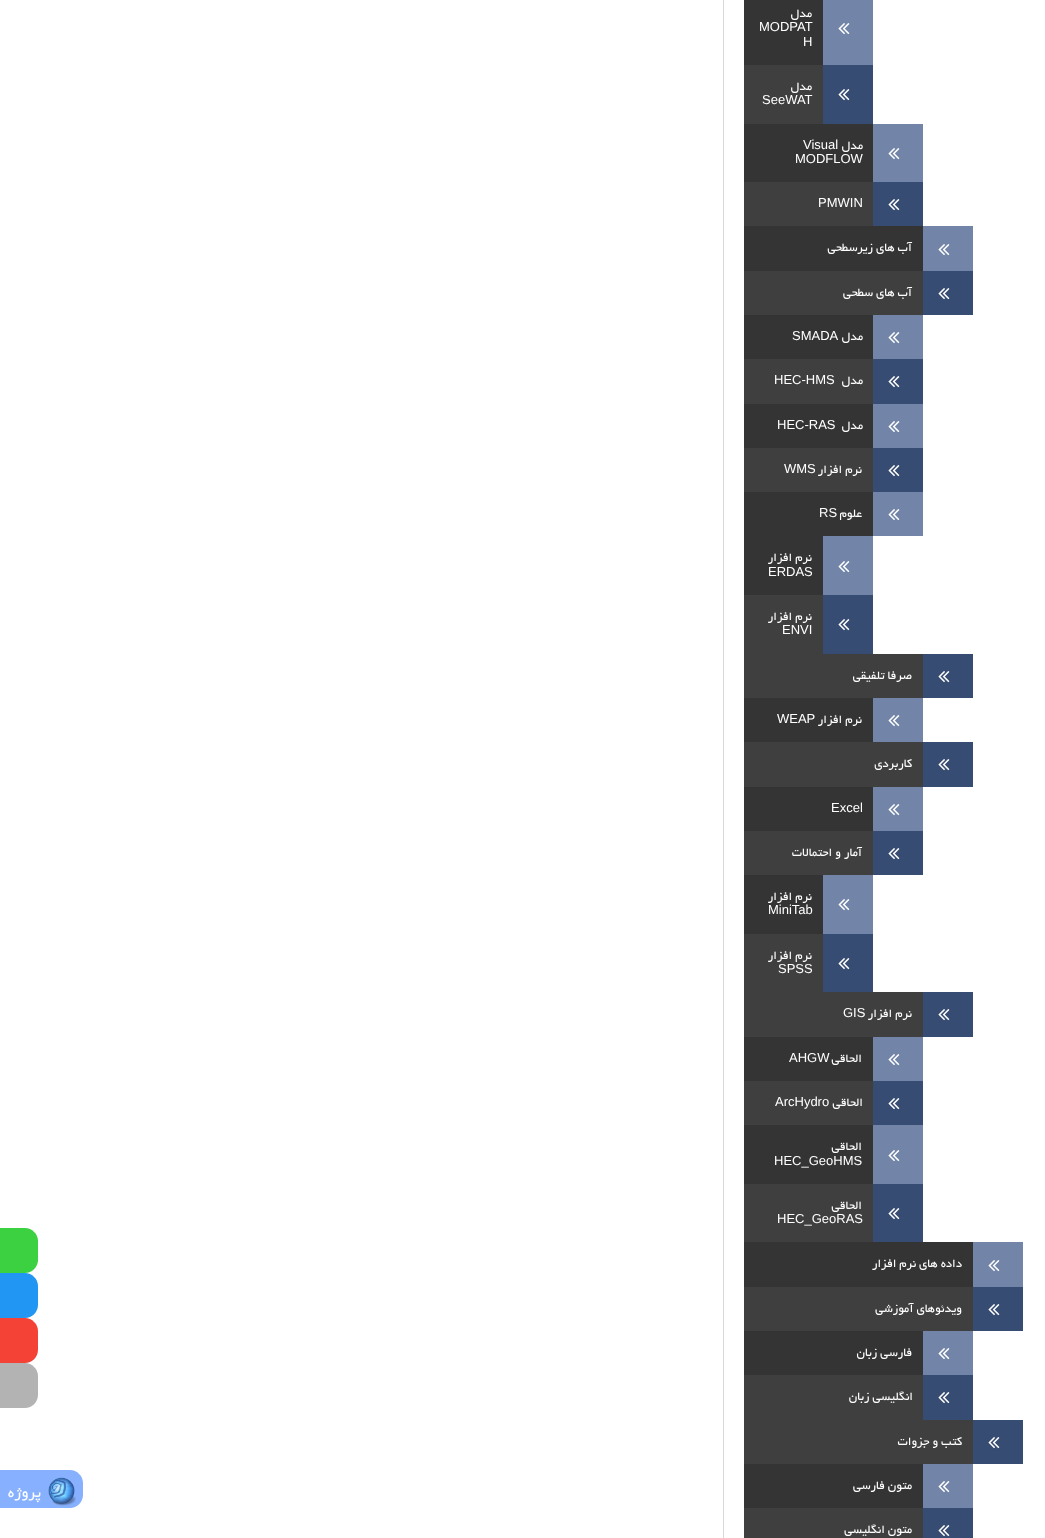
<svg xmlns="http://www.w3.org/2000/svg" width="1045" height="1538">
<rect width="100%" height="100%" fill="#fff"/>
<rect x="723" width="1" height="1538" fill="#d8d8d8"/>
<rect x="744" width="79" height="65" fill="#343434"/>
<rect x="823" width="50" height="65" fill="#7285a8"/>
<image x="838" y="23" width="12" height="12" href="media/1.png"/>
<text x="812" y="17" style="font-family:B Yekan;font-size:13px;direction:rtl;fill:#fff">مدل</text>
<text x="759" y="31" style="font-family:Liberation Sans;font-size:13px;fill:#fff">MODPAT</text>
<text x="803" y="46" style="font-family:Liberation Sans;font-size:13px;fill:#fff">H</text>
<rect x="744" y="65" width="79" height="59" fill="#3f3f3f"/>
<rect x="823" y="65" width="50" height="59" fill="#374c73"/>
<image x="838" y="89" width="12" height="12" href="media/2.png"/>
<text x="812" y="90" style="font-family:B Yekan;font-size:13px;direction:rtl;fill:#fff">مدل</text>
<text x="762" y="104" style="font-family:Liberation Sans;font-size:13px;fill:#fff">SeeWAT</text>
<rect x="744" y="124" width="129" height="58" fill="#343434"/>
<rect x="873" y="124" width="50" height="58" fill="#7285a8"/>
<image x="888" y="148" width="12" height="12" href="media/1.png"/>
<text x="863" y="149" style="font-family:B Yekan;font-size:13px;direction:rtl;fill:#fff">مدل</text>
<text x="803" y="149" style="font-family:Liberation Sans;font-size:13px;fill:#fff">Visual</text>
<text x="795" y="163" style="font-family:Liberation Sans;font-size:13px;fill:#fff">MODFLOW</text>
<rect x="744" y="182" width="129" height="44" fill="#3f3f3f"/>
<rect x="873" y="182" width="50" height="44" fill="#374c73"/>
<image x="888" y="199" width="12" height="12" href="media/2.png"/>
<text x="818" y="207" style="font-family:Liberation Sans;font-size:13px;fill:#fff">PMWIN</text>
<rect x="744" y="226" width="179" height="45" fill="#343434"/>
<rect x="923" y="226" width="50" height="45" fill="#7285a8"/>
<image x="938" y="244" width="12" height="12" href="media/1.png"/>
<text x="912" y="251" style="font-family:B Yekan;font-size:13px;direction:rtl;fill:#fff">آب های زیرسطحی</text>
<rect x="744" y="271" width="179" height="44" fill="#3f3f3f"/>
<rect x="923" y="271" width="50" height="44" fill="#374c73"/>
<image x="938" y="288" width="12" height="12" href="media/2.png"/>
<text x="912" y="296" style="font-family:B Yekan;font-size:13px;direction:rtl;fill:#fff">آب های سطحی</text>
<rect x="744" y="315" width="129" height="44" fill="#343434"/>
<rect x="873" y="315" width="50" height="44" fill="#7285a8"/>
<image x="888" y="332" width="12" height="12" href="media/1.png"/>
<text x="863" y="340" style="font-family:B Yekan;font-size:13px;direction:rtl;fill:#fff">مدل</text>
<text x="792" y="340" style="font-family:Liberation Sans;font-size:13px;fill:#fff">SMADA</text>
<rect x="744" y="359" width="129" height="45" fill="#3f3f3f"/>
<rect x="873" y="359" width="50" height="45" fill="#374c73"/>
<image x="888" y="376" width="12" height="12" href="media/2.png"/>
<text x="863" y="384" style="font-family:B Yekan;font-size:13px;direction:rtl;fill:#fff">مدل</text>
<text x="774" y="384" style="font-family:Liberation Sans;font-size:13px;fill:#fff">HEC-HMS</text>
<rect x="744" y="404" width="129" height="44" fill="#343434"/>
<rect x="873" y="404" width="50" height="44" fill="#7285a8"/>
<image x="888" y="421" width="12" height="12" href="media/1.png"/>
<text x="863" y="429" style="font-family:B Yekan;font-size:13px;direction:rtl;fill:#fff">مدل</text>
<text x="777" y="429" style="font-family:Liberation Sans;font-size:13px;fill:#fff">HEC-RAS</text>
<rect x="744" y="448" width="129" height="44" fill="#3f3f3f"/>
<rect x="873" y="448" width="50" height="44" fill="#374c73"/>
<image x="888" y="465" width="12" height="12" href="media/2.png"/>
<text x="862" y="473" style="font-family:B Yekan;font-size:13px;direction:rtl;fill:#fff">نرم افزار</text>
<text x="784" y="473" style="font-family:Liberation Sans;font-size:13px;fill:#fff">WMS</text>
<rect x="744" y="492" width="129" height="44" fill="#343434"/>
<rect x="873" y="492" width="50" height="44" fill="#7285a8"/>
<image x="888" y="509" width="12" height="12" href="media/1.png"/>
<text x="862" y="517" style="font-family:B Yekan;font-size:13px;direction:rtl;fill:#fff">علوم</text>
<text x="819" y="517" style="font-family:Liberation Sans;font-size:13px;fill:#fff">RS</text>
<rect x="744" y="536" width="79" height="59" fill="#343434"/>
<rect x="823" y="536" width="50" height="59" fill="#7285a8"/>
<image x="838" y="561" width="12" height="12" href="media/1.png"/>
<text x="812" y="561" style="font-family:B Yekan;font-size:13px;direction:rtl;fill:#fff">نرم افزار</text>
<text x="768" y="576" style="font-family:Liberation Sans;font-size:13px;fill:#fff">ERDAS</text>
<rect x="744" y="595" width="79" height="59" fill="#3f3f3f"/>
<rect x="823" y="595" width="50" height="59" fill="#374c73"/>
<image x="838" y="619" width="12" height="12" href="media/2.png"/>
<text x="812" y="620" style="font-family:B Yekan;font-size:13px;direction:rtl;fill:#fff">نرم افزار</text>
<text x="782" y="634" style="font-family:Liberation Sans;font-size:13px;fill:#fff">ENVI</text>
<rect x="744" y="654" width="179" height="44" fill="#3f3f3f"/>
<rect x="923" y="654" width="50" height="44" fill="#374c73"/>
<image x="938" y="671" width="12" height="12" href="media/2.png"/>
<text x="912" y="679" style="font-family:B Yekan;font-size:13px;direction:rtl;fill:#fff">صرفا تلفیقی</text>
<rect x="744" y="698" width="129" height="44" fill="#343434"/>
<rect x="873" y="698" width="50" height="44" fill="#7285a8"/>
<image x="888" y="715" width="12" height="12" href="media/1.png"/>
<text x="862" y="723" style="font-family:B Yekan;font-size:13px;direction:rtl;fill:#fff">نرم افزار</text>
<text x="777" y="723" style="font-family:Liberation Sans;font-size:13px;fill:#fff">WEAP</text>
<rect x="744" y="742" width="179" height="45" fill="#3f3f3f"/>
<rect x="923" y="742" width="50" height="45" fill="#374c73"/>
<image x="938" y="759" width="12" height="12" href="media/2.png"/>
<text x="912" y="767" style="font-family:B Yekan;font-size:13px;direction:rtl;fill:#fff">کاربردی</text>
<rect x="744" y="787" width="129" height="44" fill="#343434"/>
<rect x="873" y="787" width="50" height="44" fill="#7285a8"/>
<image x="888" y="804" width="12" height="12" href="media/1.png"/>
<text x="831" y="812" style="font-family:Liberation Sans;font-size:13px;fill:#fff">Excel</text>
<rect x="744" y="831" width="129" height="44" fill="#3f3f3f"/>
<rect x="873" y="831" width="50" height="44" fill="#374c73"/>
<image x="888" y="848" width="12" height="12" href="media/2.png"/>
<text x="862" y="856" style="font-family:B Yekan;font-size:13px;direction:rtl;fill:#fff">آمار و احتمالات</text>
<rect x="744" y="875" width="79" height="59" fill="#343434"/>
<rect x="823" y="875" width="50" height="59" fill="#7285a8"/>
<image x="838" y="899" width="12" height="12" href="media/1.png"/>
<text x="812" y="900" style="font-family:B Yekan;font-size:13px;direction:rtl;fill:#fff">نرم افزار</text>
<text x="768" y="914" style="font-family:Liberation Sans;font-size:13px;fill:#fff">MiniTab</text>
<rect x="744" y="934" width="79" height="58" fill="#3f3f3f"/>
<rect x="823" y="934" width="50" height="58" fill="#374c73"/>
<image x="838" y="958" width="12" height="12" href="media/2.png"/>
<text x="812" y="959" style="font-family:B Yekan;font-size:13px;direction:rtl;fill:#fff">نرم افزار</text>
<text x="778" y="973" style="font-family:Liberation Sans;font-size:13px;fill:#fff">SPSS</text>
<rect x="744" y="992" width="179" height="45" fill="#3f3f3f"/>
<rect x="923" y="992" width="50" height="45" fill="#374c73"/>
<image x="938" y="1009" width="12" height="12" href="media/2.png"/>
<text x="912" y="1017" style="font-family:B Yekan;font-size:13px;direction:rtl;fill:#fff">نرم افزار</text>
<text x="843" y="1017" style="font-family:Liberation Sans;font-size:13px;fill:#fff">GIS</text>
<rect x="744" y="1037" width="129" height="44" fill="#343434"/>
<rect x="873" y="1037" width="50" height="44" fill="#7285a8"/>
<image x="888" y="1054" width="12" height="12" href="media/1.png"/>
<text x="862" y="1062" style="font-family:B Yekan;font-size:13px;direction:rtl;fill:#fff">الحاقی</text>
<text x="789" y="1062" style="font-family:Liberation Sans;font-size:13px;fill:#fff">AHGW</text>
<rect x="744" y="1081" width="129" height="44" fill="#3f3f3f"/>
<rect x="873" y="1081" width="50" height="44" fill="#374c73"/>
<image x="888" y="1098" width="12" height="12" href="media/2.png"/>
<text x="863" y="1106" style="font-family:B Yekan;font-size:13px;direction:rtl;fill:#fff">الحاقی</text>
<text x="775" y="1106" style="font-family:Liberation Sans;font-size:13px;fill:#fff">ArcHydro</text>
<rect x="744" y="1125" width="129" height="59" fill="#343434"/>
<rect x="873" y="1125" width="50" height="59" fill="#7285a8"/>
<image x="888" y="1150" width="12" height="12" href="media/1.png"/>
<text x="862" y="1150" style="font-family:B Yekan;font-size:13px;direction:rtl;fill:#fff">الحاقی</text>
<text x="774" y="1165" style="font-family:Liberation Sans;font-size:13px;fill:#fff">HEC_GeoHMS</text>
<rect x="744" y="1184" width="129" height="58" fill="#3f3f3f"/>
<rect x="873" y="1184" width="50" height="58" fill="#374c73"/>
<image x="888" y="1208" width="12" height="12" href="media/2.png"/>
<text x="862" y="1209" style="font-family:B Yekan;font-size:13px;direction:rtl;fill:#fff">الحاقی</text>
<text x="777" y="1223" style="font-family:Liberation Sans;font-size:13px;fill:#fff">HEC_GeoRAS</text>
<rect x="744" y="1242" width="229" height="45" fill="#343434"/>
<rect x="973" y="1242" width="50" height="45" fill="#7285a8"/>
<image x="988" y="1260" width="12" height="12" href="media/1.png"/>
<text x="962" y="1267" style="font-family:B Yekan;font-size:13px;direction:rtl;fill:#fff">داده های نرم افزار</text>
<rect x="744" y="1287" width="229" height="44" fill="#3f3f3f"/>
<rect x="973" y="1287" width="50" height="44" fill="#374c73"/>
<image x="988" y="1304" width="12" height="12" href="media/2.png"/>
<text x="962" y="1312" style="font-family:B Yekan;font-size:13px;direction:rtl;fill:#fff">ویدئوهای آموزشی</text>
<rect x="744" y="1331" width="179" height="44" fill="#343434"/>
<rect x="923" y="1331" width="50" height="44" fill="#7285a8"/>
<image x="938" y="1348" width="12" height="12" href="media/1.png"/>
<text x="912" y="1356" style="font-family:B Yekan;font-size:13px;direction:rtl;fill:#fff">فارسی زبان</text>
<rect x="744" y="1375" width="179" height="45" fill="#3f3f3f"/>
<rect x="923" y="1375" width="50" height="45" fill="#374c73"/>
<image x="938" y="1392" width="12" height="12" href="media/2.png"/>
<text x="913" y="1400" style="font-family:B Yekan;font-size:13px;direction:rtl;fill:#fff">انگلیسی زبان</text>
<rect x="744" y="1420" width="229" height="44" fill="#3f3f3f"/>
<rect x="973" y="1420" width="50" height="44" fill="#374c73"/>
<image x="988" y="1437" width="12" height="12" href="media/2.png"/>
<text x="962" y="1445" style="font-family:B Yekan;font-size:13px;direction:rtl;fill:#fff">کتب و جزوات</text>
<rect x="744" y="1464" width="179" height="44" fill="#343434"/>
<rect x="923" y="1464" width="50" height="44" fill="#7285a8"/>
<image x="938" y="1481" width="12" height="12" href="media/1.png"/>
<text x="912" y="1489" style="font-family:B Yekan;font-size:13px;direction:rtl;fill:#fff">متون فارسی</text>
<rect x="744" y="1508" width="179" height="30" fill="#3f3f3f"/>
<rect x="923" y="1508" width="50" height="30" fill="#374c73"/>
<image x="938" y="1525" width="12" height="12" href="media/2.png"/>
<text x="912" y="1533" style="font-family:B Yekan;font-size:13px;direction:rtl;fill:#fff">متون انگلیسی</text>
<path d="M-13 1228h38c7 0 13 6 13 13v19c0 7-6 13-13 13h-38z" fill="#3bd141"/>
<path d="M-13 1273h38c7 0 13 6 13 13v19c0 7-6 13-13 13h-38z" fill="#2196f3"/>
<path d="M-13 1318h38c7 0 13 6 13 13v19c0 7-6 13-13 13h-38z" fill="#f44336"/>
<path d="M-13 1363h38c7 0 13 6 13 13v19c0 7-6 13-13 13h-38z" fill="#b3b3b3"/>
<path d="M-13 1470h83c7 0 13 6 13 13v12c0 7-6 13-13 13h-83z" fill="#87b1ff"/>
<image x="48" y="1477" width="28" height="29" href="media/3.png"/>
<text x="41" y="1497" style="font-family:B Yekan;font-size:16px;direction:rtl;fill:#fff">پروژه</text>
</svg>
